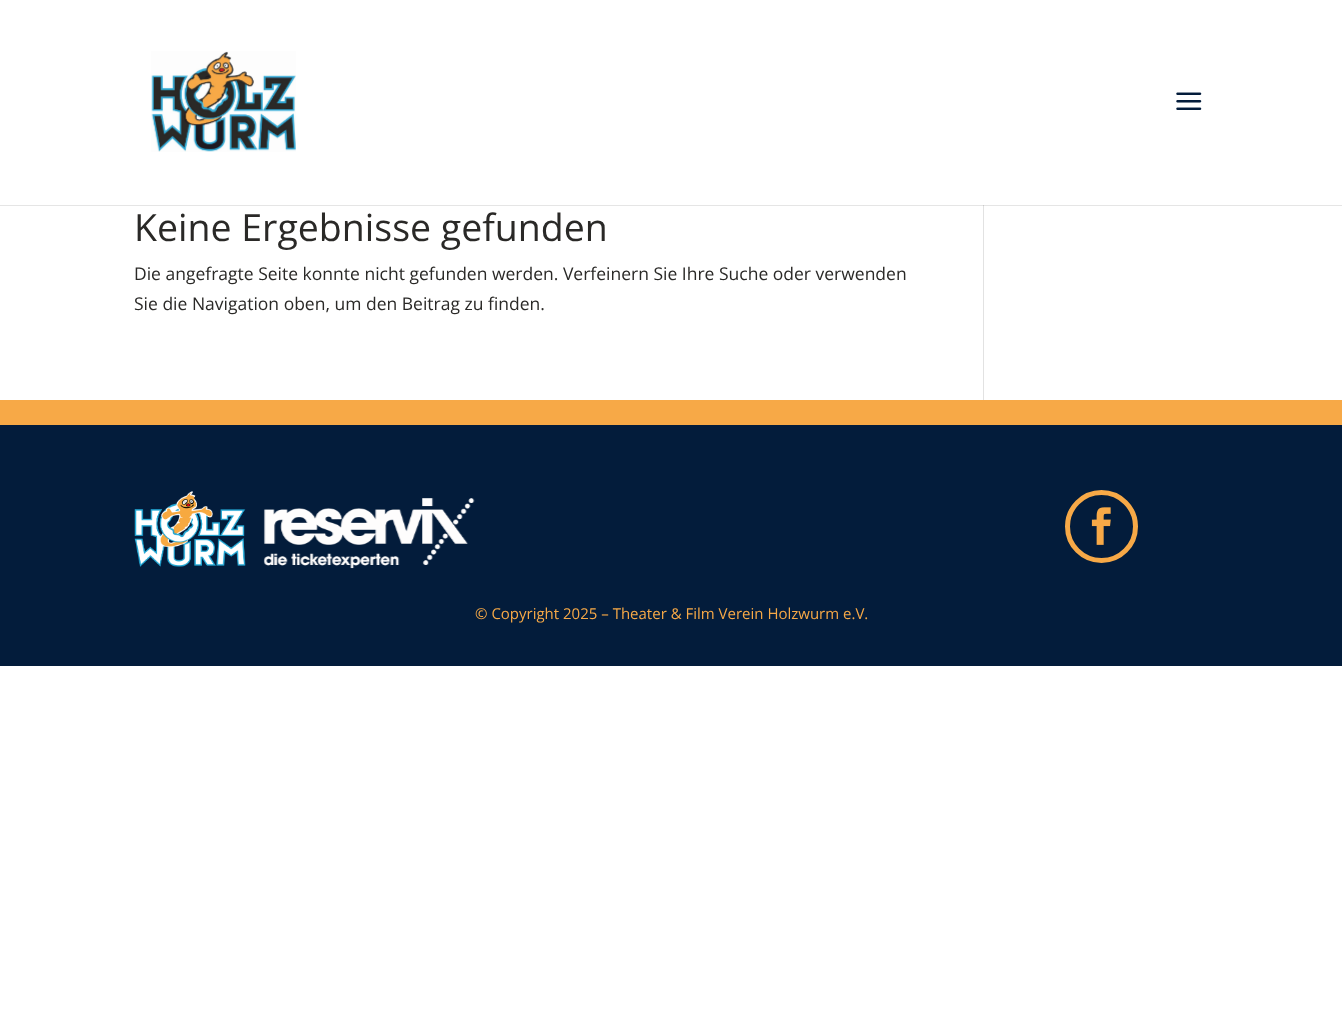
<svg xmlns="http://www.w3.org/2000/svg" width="1342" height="1013">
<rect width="100%" height="100%" fill="#fff"/>
<rect x="983" y="205" width="1" height="195" fill="#e2e2e2"/>
<path d="M0 205v1h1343v-205h-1v204z" fill="#0000001a"/>
<image x="151" y="51" width="145" height="101" href="media/1.png"/>
<image x="1176" y="92" width="26" height="18" href="media/2.png"/>
<text x="134" y="241" style="font-family:Open Sans;font-size:37.5px;fill:#2a2927">Keine Ergebnisse gefunden</text>
<text x="134" y="280" style="font-family:Open Sans;font-size:17.5px;fill:#2a2927">Die angefragte Seite konnte nicht gefunden werden. Verfeinern Sie Ihre Suche oder verwenden</text>
<text x="134" y="310" style="font-family:Open Sans;font-size:17.5px;fill:#2a2927">Sie die Navigation oben, um den Beitrag zu finden.</text>
<rect y="425" width="1342" height="241" fill="#031c3b"/>
<rect y="400" width="1342" height="25" fill="#f7a947"/>
<image x="134" y="491" width="112" height="76" href="media/3.png"/>
<image x="263" y="498" width="212" height="71" href="media/4.png"/>
<circle cx="1101.5" cy="526.5" r="34" fill="none" stroke="#f7a947" stroke-width="5"/>
<image x="1091" y="507" width="20" height="38" href="media/5.png"/>
<text x="475" y="619" style="font-family:Open Sans;font-size:15px;fill:#f7a947">© Copyright 2025 – Theater &amp; Film Verein Holzwurm e.V.</text>
</svg>
